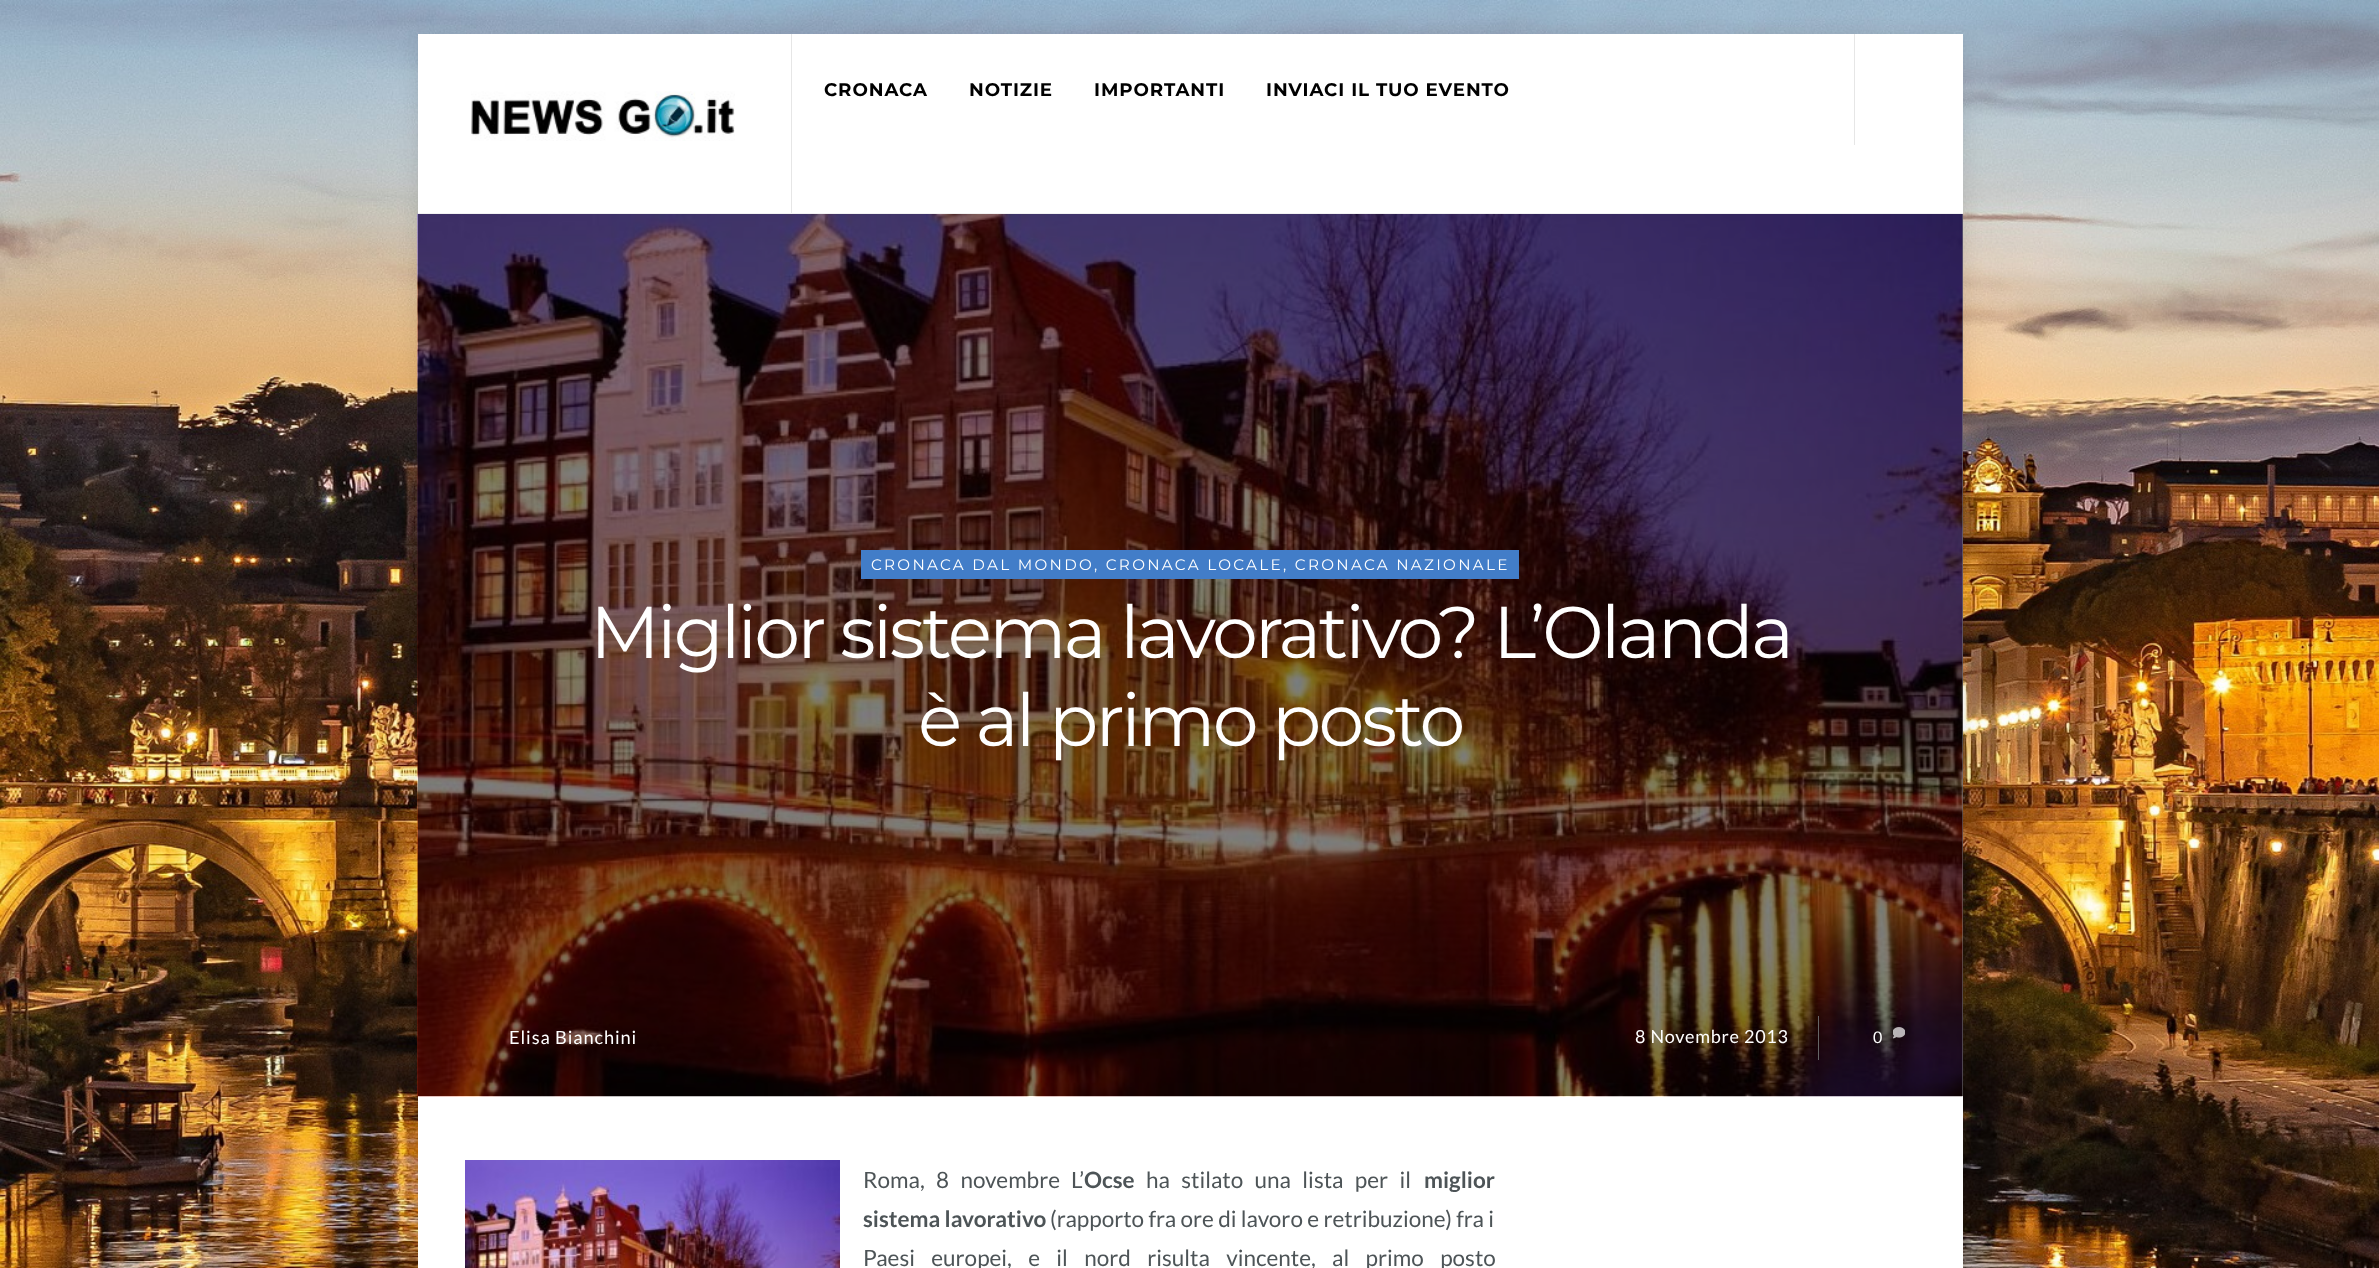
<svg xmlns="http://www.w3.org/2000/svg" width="2379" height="1268">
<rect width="100%" height="100%" fill="#fff"/>
<image x="0" y="0" width="2379" height="1268" href="media/1.png"/>
<rect x="418" y="38" width="1545" height="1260" fill="#0000001a" filter="blur(10px)"/>
<rect x="418" y="214" width="1545" height="1054" fill="#fff"/>
<rect x="418" y="34" width="1545" height="179" fill="#fff"/>
<image x="417" y="213" width="1546" height="884" href="media/3.png"/>
<rect x="418" y="213" width="1545" height="1" fill="#f2f2f2"/>
<rect x="791" y="34" width="1" height="179" fill="#e6e6e6"/>
<image x="471" y="91" width="264" height="50" href="media/2.png"/>
<text x="824" y="96" style="font-family:Montserrat;font-size:18.25px;font-weight:bold;letter-spacing:0.9px;fill:#000">CRONACA</text>
<text x="969" y="96" style="font-family:Montserrat;font-size:18.25px;font-weight:bold;letter-spacing:0.9px;fill:#000">NOTIZIE</text>
<text x="1094" y="96" style="font-family:Montserrat;font-size:18.25px;font-weight:bold;letter-spacing:0.9px;fill:#000">IMPORTANTI</text>
<text x="1266" y="96" style="font-family:Montserrat;font-size:18.25px;font-weight:bold;letter-spacing:0.9px;fill:#000">INVIACI IL TUO EVENTO</text>
<rect x="1854" y="34" width="1" height="111" fill="#e6e6e6"/>
<rect x="418" y="214" width="1545" height="882" fill="#00000080"/>
<rect x="861" y="550" width="658" height="29" fill="#427dc8"/>
<text x="871" y="570" style="font-family:Montserrat;font-size:15.2px;letter-spacing:2.3px;fill:#fff">CRONACA DAL MONDO</text>
<text x="1094" y="570" style="font-family:Montserrat;font-size:15.2px;letter-spacing:2.3px;fill:#fff">, CRONACA LOCALE, CRONACA NAZIONALE</text>
<text x="509" y="1044" style="font-family:Lato;font-size:18.25px;letter-spacing:0.9px;fill:#fff">Elisa Bianchini</text>
<text x="1873" y="1043" style="font-family:Lato;font-size:16px;fill:#fff">0</text>
<image x="1893" y="1027" width="12" height="12" href="media/4.png"/>
<text x="590" y="658" style="font-family:Montserrat;font-size:73.1px;letter-spacing:-2.9px;fill:#fff">Miglior sistema lavorativo? L’Olanda</text>
<text x="918" y="746" style="font-family:Montserrat;font-size:73.1px;letter-spacing:-2.9px;fill:#fff">è al primo posto</text>
<text x="1635" y="1043" style="font-family:Lato;font-size:18px;letter-spacing:0.75px;fill:#fff">8 Novembre 2013</text>
<rect x="1818" y="1016" width="1" height="44" fill="#666"/>
<image x="465" y="1160" width="375" height="108" href="media/5.png"/>
<text x="863" y="1188" word-spacing="7" style="font-family:Lato;font-size:22.5px;fill:#4d5457">Roma, 8 novembre</text>
<text x="1071" y="1188" style="font-family:Lato;font-size:22.5px;fill:#4d5457">L’</text>
<text x="1084" y="1188" style="font-family:Lato;font-size:22.5px;font-weight:bold;fill:#4d5457">Ocse</text>
<text x="1146" y="1188" word-spacing="7" style="font-family:Lato;font-size:22.5px;fill:#4d5457">ha stilato una lista per il</text>
<text x="1424" y="1188" style="font-family:Lato;font-size:22.5px;font-weight:bold;fill:#4d5457">miglior</text>
<text x="863" y="1227" style="font-family:Lato;font-size:22.5px;font-weight:bold;fill:#4d5457">sistema lavorativo</text>
<text x="1050" y="1227" style="font-family:Lato;font-size:22.5px;fill:#4d5457">(rapporto fra ore di lavoro e retribuzione) fra i</text>
<text x="863" y="1266" word-spacing="12" style="font-family:Lato;font-size:22.5px;fill:#4d5457">Paesi europei, e il nord risulta vincente, al primo posto</text>
</svg>
